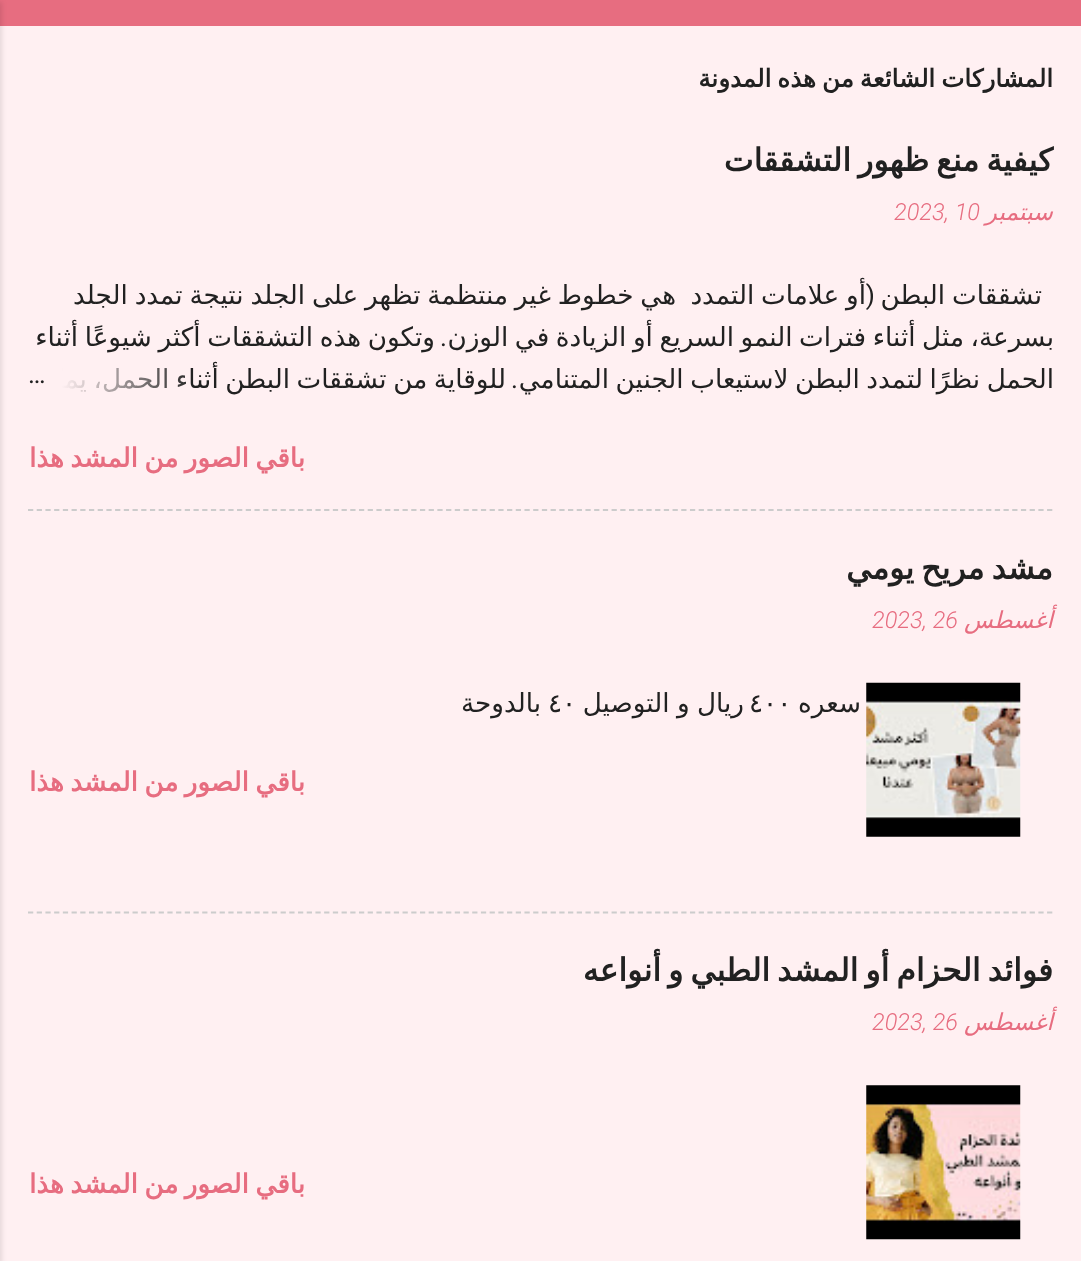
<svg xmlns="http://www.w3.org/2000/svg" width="1081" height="1261">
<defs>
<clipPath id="clip1"><rect x="28" y="275" width="1026" height="126"/></clipPath>
<linearGradient id="g1" gradientUnits="userSpaceOnUse" x1="28" y1="380" x2="196" y2="380"><stop offset="0" stop-color="#fff0f2"/><stop offset="0.2" stop-color="#fff0f2"/><stop offset="1" stop-color="#fff0f2" stop-opacity="0"/></linearGradient>
</defs>
<rect width="100%" height="100%" fill="#e76d80"/>
<rect y="26" width="1081" height="1235" fill="#fff0f2"/>
<text x="1053" y="87" word-spacing="-1.75" style="font-family:DejaVu Sans;font-size:24.5px;font-weight:bold;direction:rtl;fill:#212121">المشاركات الشائعة من هذه المدونة</text>
<text x="1053" y="171" word-spacing="-3" style="font-family:DejaVu Sans;font-size:31.5px;font-weight:bold;direction:rtl;fill:#212121">كيفية منع ظهور التشققات</text>
<text x="1053" y="220" style="font-family:DejaVu Sans;font-size:23.5px;font-style:italic;direction:rtl;fill:#e76d80">سبتمبر</text>
<text x="894" y="220" style="font-family:Roboto;font-size:23.5px;font-weight:300;font-style:italic;fill:#e76d80">2023, 10</text>
<text x="1042" y="304" word-spacing="-1.5" style="font-family:DejaVu Sans;font-size:26.25px;direction:rtl;fill:#212121">تشققات البطن</text>
<text x="866" y="304" word-spacing="-1.5" style="font-family:DejaVu Sans;font-size:26.25px;direction:rtl;fill:#212121">أو علامات التمدد</text>
<text x="875" y="304" style="font-family:Roboto;font-size:26.25px;direction:rtl;fill:#212121">(</text>
<text x="676" y="304" word-spacing="-1.5" style="font-family:DejaVu Sans;font-size:26.25px;direction:rtl;fill:#212121">هي خطوط غير منتظمة تظهر على الجلد نتيجة تمدد الجلد</text>
<g clip-path="url(#clip1)">
<text x="1054" y="346" word-spacing="-1.75" style="font-family:DejaVu Sans;font-size:26.25px;direction:rtl;fill:#212121">بسرعة، مثل أثناء فترات النمو السريع أو الزيادة في الوزن</text>
</g>
<text x="435" y="346" word-spacing="-1.75" style="font-family:DejaVu Sans;font-size:26.25px;direction:rtl;fill:#212121">وتكون هذه التشققات أكثر شيوعًا أثناء</text>
<text x="447" y="346" style="font-family:Roboto;font-size:26.25px;direction:rtl;fill:#212121">.</text>
<g clip-path="url(#clip1)">
<text x="1054" y="388" word-spacing="-1.75" style="font-family:DejaVu Sans;font-size:26.25px;direction:rtl;fill:#212121">الحمل نظرًا لتمدد البطن لاستيعاب الجنين المتنامي</text>
</g>
<text x="506" y="388" word-spacing="-1.75" style="font-family:DejaVu Sans;font-size:26.25px;direction:rtl;fill:#212121">للوقاية من تشققات البطن أثناء الحمل، يمكن</text>
<text x="518" y="388" style="font-family:Roboto;font-size:26.25px;direction:rtl;fill:#212121">.</text>
<rect x="31" y="368" width="159" height="27" fill="url(#g1)"/>
<text x="28" y="383" style="font-family:Roboto;font-size:26.25px;fill:#212121">…</text>
<text x="305" y="467" word-spacing="-2" style="font-family:DejaVu Sans;font-size:26.25px;font-weight:bold;direction:rtl;fill:#e76d80">باقي الصور من المشد هذا</text>
<path d="M28 510h1025.5" fill="none" stroke="#ccc" stroke-width="1.8" stroke-dasharray="5.25 3.46"/>
<text x="1053" y="579" word-spacing="-3" style="font-family:DejaVu Sans;font-size:31.5px;font-weight:bold;direction:rtl;fill:#212121">مشد مريح يومي</text>
<text x="1053" y="628" style="font-family:DejaVu Sans;font-size:23.5px;font-style:italic;direction:rtl;fill:#e76d80">أغسطس</text>
<text x="872" y="628" style="font-family:Roboto;font-size:23.5px;font-weight:300;font-style:italic;fill:#e76d80">2023, 26</text>
<image x="866" y="682" width="155" height="155" href="media/1.png"/>
<text x="861" y="712" style="font-family:DejaVu Sans;font-size:26.25px;direction:rtl;fill:#212121">سعره</text>
<text x="749" y="712" style="font-family:DejaVu Sans;font-size:26.25px;fill:#212121">٤٠٠</text>
<text x="744" y="712" word-spacing="-1" style="font-family:DejaVu Sans;font-size:26.25px;direction:rtl;fill:#212121">ريال و التوصيل</text>
<text x="548" y="712" style="font-family:DejaVu Sans;font-size:26.25px;fill:#212121">٤٠</text>
<text x="541" y="712" style="font-family:DejaVu Sans;font-size:26.25px;direction:rtl;fill:#212121">بالدوحة</text>
<text x="305" y="791" word-spacing="-2" style="font-family:DejaVu Sans;font-size:26.25px;font-weight:bold;direction:rtl;fill:#e76d80">باقي الصور من المشد هذا</text>
<path d="M28 912.5h1025.5" fill="none" stroke="#ccc" stroke-width="1.8" stroke-dasharray="5.25 3.46"/>
<text x="1053" y="981" word-spacing="-3" style="font-family:DejaVu Sans;font-size:31.5px;font-weight:bold;direction:rtl;fill:#212121">فوائد الحزام أو المشد الطبي و أنواعه</text>
<text x="1053" y="1030" style="font-family:DejaVu Sans;font-size:23.5px;font-style:italic;direction:rtl;fill:#e76d80">أغسطس</text>
<text x="872" y="1030" style="font-family:Roboto;font-size:23.5px;font-weight:300;font-style:italic;fill:#e76d80">2023, 26</text>
<image x="866" y="1085" width="155" height="155" href="media/2.png"/>
<text x="305" y="1193" word-spacing="-2" style="font-family:DejaVu Sans;font-size:26.25px;font-weight:bold;direction:rtl;fill:#e76d80">باقي الصور من المشد هذا</text>
<rect x="-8" y="2" width="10" height="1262" fill="#0000001a" filter="blur(2.5px)"/>
</svg>
